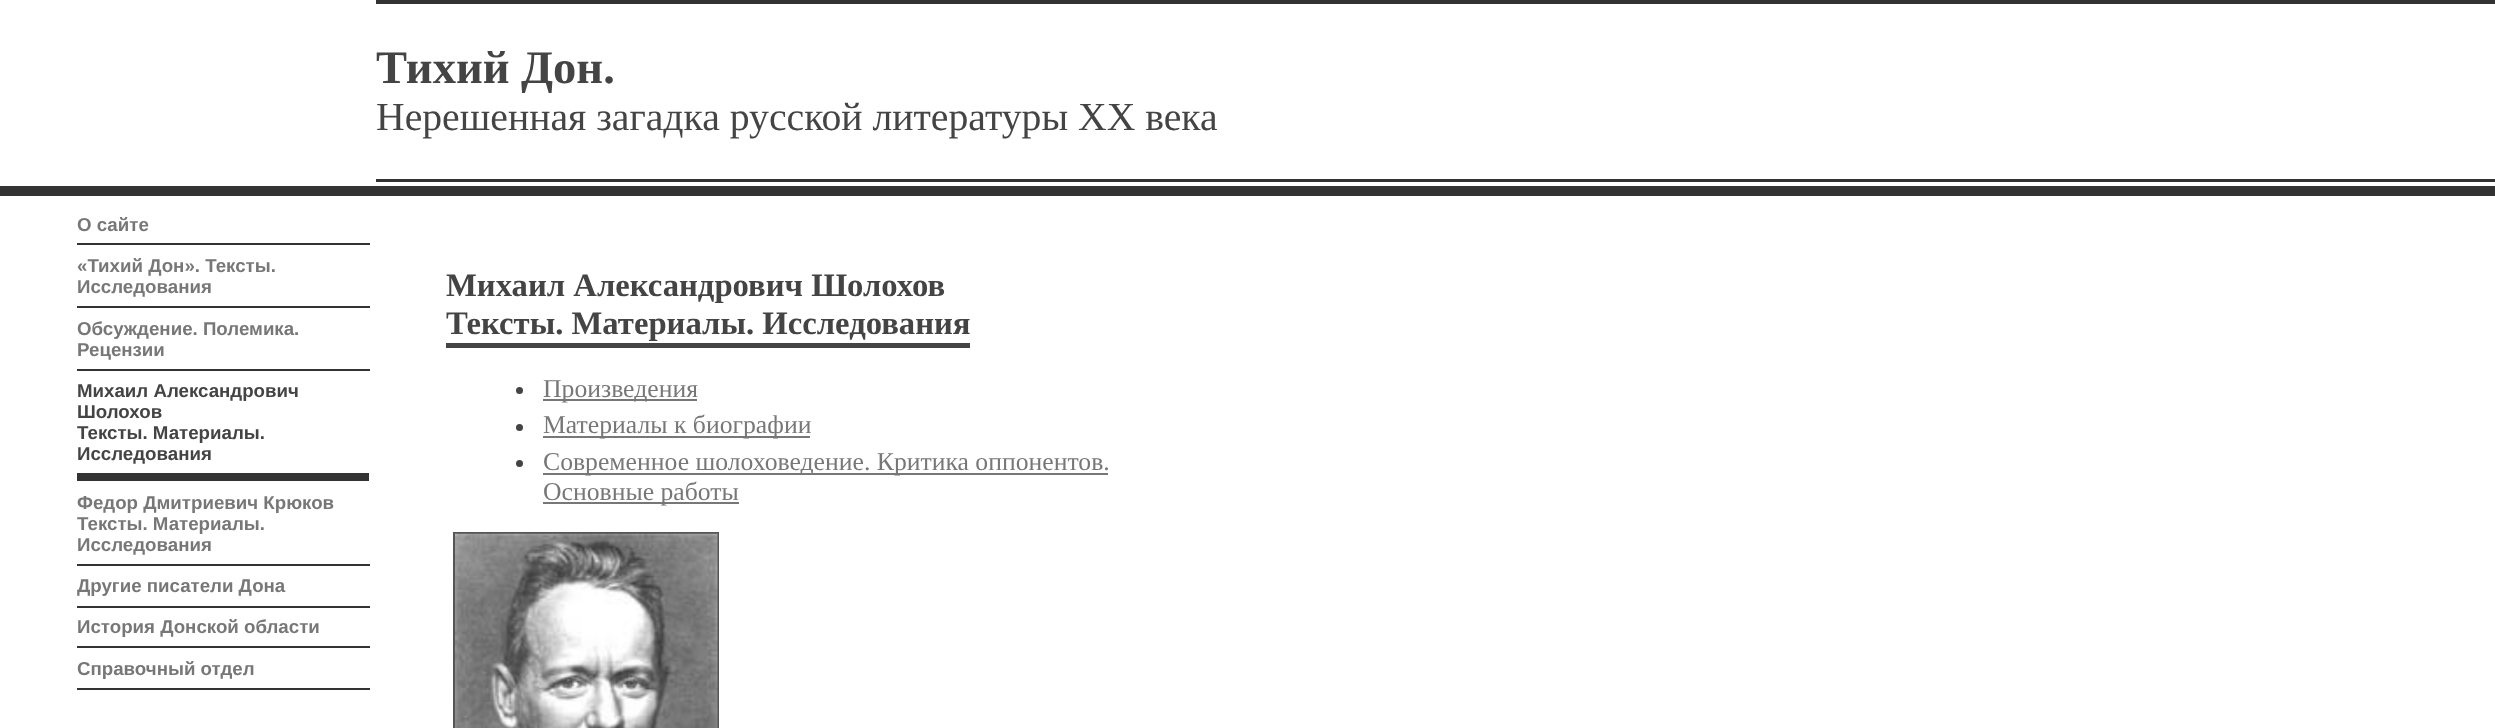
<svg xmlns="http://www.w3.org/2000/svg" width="2495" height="728">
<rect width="100%" height="100%" fill="#fff"/>
<rect x="376" width="2119" height="4" fill="#333"/>
<text x="376" y="83" style="font-family:Liberation Serif;font-size:46.5px;font-weight:bold;fill:#444">Тихий Дон.</text>
<text x="376" y="130" style="font-family:Liberation Serif;font-size:39.7px;fill:#444">Нерешенная загадка русской литературы XX века</text>
<rect x="376" y="179" width="2119" height="3" fill="#333"/>
<rect y="186" width="2495" height="10" fill="#333"/>
<text x="77" y="231" style="font-family:Liberation Sans;font-size:18.7px;font-weight:bold;fill:#777">О сайте</text>
<rect x="77" y="243" width="293" height="2" fill="#333"/>
<text x="77" y="272" style="font-family:Liberation Sans;font-size:18.7px;font-weight:bold;fill:#777">«Тихий Дон». Тексты.</text>
<text x="77" y="293" style="font-family:Liberation Sans;font-size:18.7px;font-weight:bold;fill:#777">Исследования</text>
<rect x="77" y="306" width="293" height="2" fill="#333"/>
<text x="77" y="335" style="font-family:Liberation Sans;font-size:18.7px;font-weight:bold;fill:#777">Обсуждение. Полемика.</text>
<text x="77" y="356" style="font-family:Liberation Sans;font-size:18.7px;font-weight:bold;fill:#777">Рецензии</text>
<rect x="77" y="369" width="293" height="2" fill="#333"/>
<text x="77" y="397" style="font-family:Liberation Sans;font-size:18.7px;font-weight:bold;fill:#444">Михаил Александрович</text>
<text x="77" y="418" style="font-family:Liberation Sans;font-size:18.7px;font-weight:bold;fill:#444">Шолохов</text>
<text x="77" y="439" style="font-family:Liberation Sans;font-size:18.7px;font-weight:bold;fill:#444">Тексты. Материалы.</text>
<text x="77" y="460" style="font-family:Liberation Sans;font-size:18.7px;font-weight:bold;fill:#444">Исследования</text>
<rect x="77" y="473" width="292" height="8" fill="#333"/>
<text x="77" y="509" style="font-family:Liberation Sans;font-size:18.7px;font-weight:bold;fill:#777">Федор Дмитриевич Крюков</text>
<text x="77" y="530" style="font-family:Liberation Sans;font-size:18.7px;font-weight:bold;fill:#777">Тексты. Материалы.</text>
<text x="77" y="551" style="font-family:Liberation Sans;font-size:18.7px;font-weight:bold;fill:#777">Исследования</text>
<rect x="77" y="564" width="293" height="2" fill="#333"/>
<text x="77" y="592" style="font-family:Liberation Sans;font-size:18.7px;font-weight:bold;fill:#777">Другие писатели Дона</text>
<rect x="77" y="606" width="293" height="2" fill="#333"/>
<text x="77" y="633" style="font-family:Liberation Sans;font-size:18.7px;font-weight:bold;fill:#777">История Донской области</text>
<rect x="77" y="646" width="293" height="2" fill="#333"/>
<text x="77" y="675" style="font-family:Liberation Sans;font-size:18.7px;font-weight:bold;fill:#777">Справочный отдел</text>
<rect x="77" y="688" width="293" height="2" fill="#333"/>
<text x="446" y="296" style="font-family:Liberation Serif;font-size:32.7px;font-weight:bold;fill:#444">Михаил Александрович Шолохов</text>
<text x="446" y="334" style="font-family:Liberation Serif;font-size:32.7px;font-weight:bold;fill:#444">Тексты. Материалы. Исследования</text>
<rect x="446" y="343" width="524" height="5" fill="#444"/>
<circle cx="519.5" cy="390.5" r="3.5" fill="#444"/>
<rect x="543" y="399" width="154" height="2" fill="#777"/>
<text x="543" y="397" style="font-family:Liberation Serif;font-size:25.7px;fill:#777">Произведения</text>
<circle cx="519.5" cy="427.5" r="3.5" fill="#444"/>
<rect x="543" y="436" width="267" height="2" fill="#777"/>
<text x="543" y="433" style="font-family:Liberation Serif;font-size:25.7px;fill:#777">Материалы к биографии</text>
<circle cx="519.5" cy="463.5" r="3.5" fill="#444"/>
<rect x="543" y="473" width="565" height="2" fill="#777"/>
<text x="543" y="470" style="font-family:Liberation Serif;font-size:25.7px;fill:#777">Современное шолоховедение. Критика оппонентов.</text>
<rect x="543" y="502" width="196" height="2" fill="#777"/>
<text x="543" y="500" style="font-family:Liberation Serif;font-size:25.7px;fill:#777">Основные работы</text>
<rect x="454" y="533" width="264" height="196" fill="none" stroke="#555" stroke-width="2"/>
<image x="455" y="533" width="263" height="195" href="media/1.png"/>
</svg>
